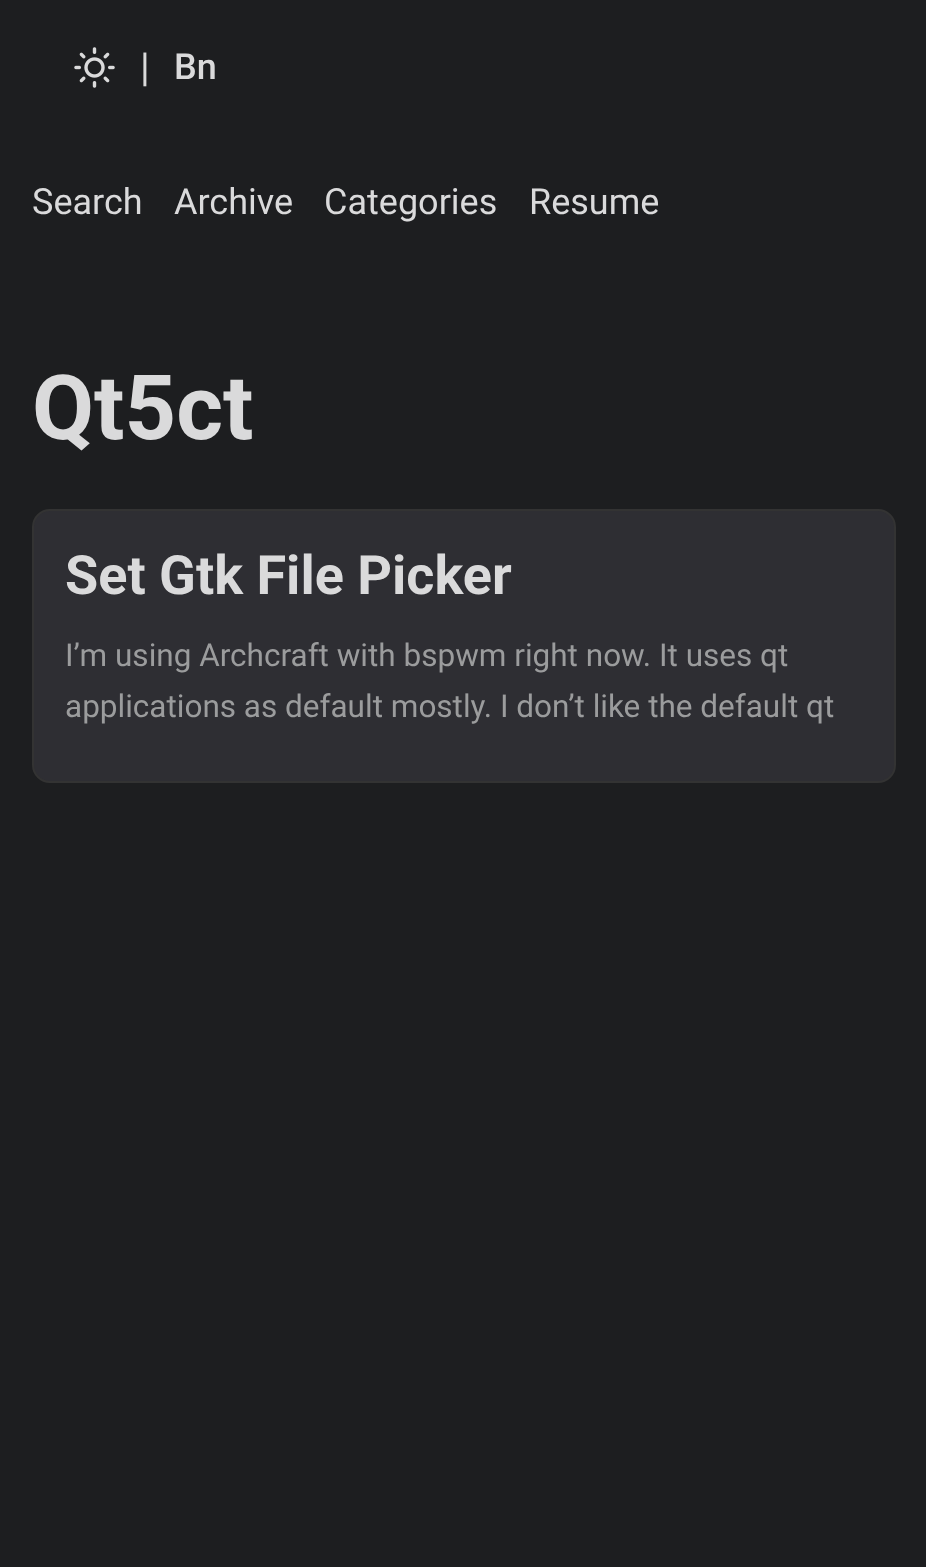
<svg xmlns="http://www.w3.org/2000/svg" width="926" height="1567">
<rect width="100%" height="100%" fill="#1d1e20"/>
<image x="74" y="47" width="41" height="41" href="media/1.png"/>
<text x="140" y="81" style="font-family:Roboto;font-size:40px;fill:#dadadb">|</text>
<text x="174" y="79" style="font-family:Roboto;font-size:36px;font-weight:500;fill:#dadadb">Bn</text>
<text x="32" y="214" style="font-family:Roboto;font-size:36px;fill:#dadadb">Search</text>
<text x="174" y="214" style="font-family:Roboto;font-size:36px;fill:#dadadb">Archive</text>
<text x="324" y="214" style="font-family:Roboto;font-size:36px;fill:#dadadb">Categories</text>
<text x="529" y="214" style="font-family:Roboto;font-size:36px;fill:#dadadb">Resume</text>
<text x="32" y="439" style="font-family:Roboto;font-size:90px;font-weight:bold;fill:#dadadb">Qt5ct</text>
<rect x="33" y="510" width="862" height="272" rx="17" fill="#2e2e33" stroke="#333" stroke-width="2"/>
<text x="65" y="594" style="font-family:Roboto;font-size:54px;font-weight:bold;fill:#dadadb">Set Gtk File Picker</text>
<text x="65" y="666" style="font-family:Roboto;font-size:31.5px;fill:#9b9c9d">I’m using Archcraft with bspwm right now. It uses qt</text>
<text x="65" y="717" style="font-family:Roboto;font-size:31.5px;fill:#9b9c9d">applications as default mostly. I don’t like the default qt</text>
</svg>
